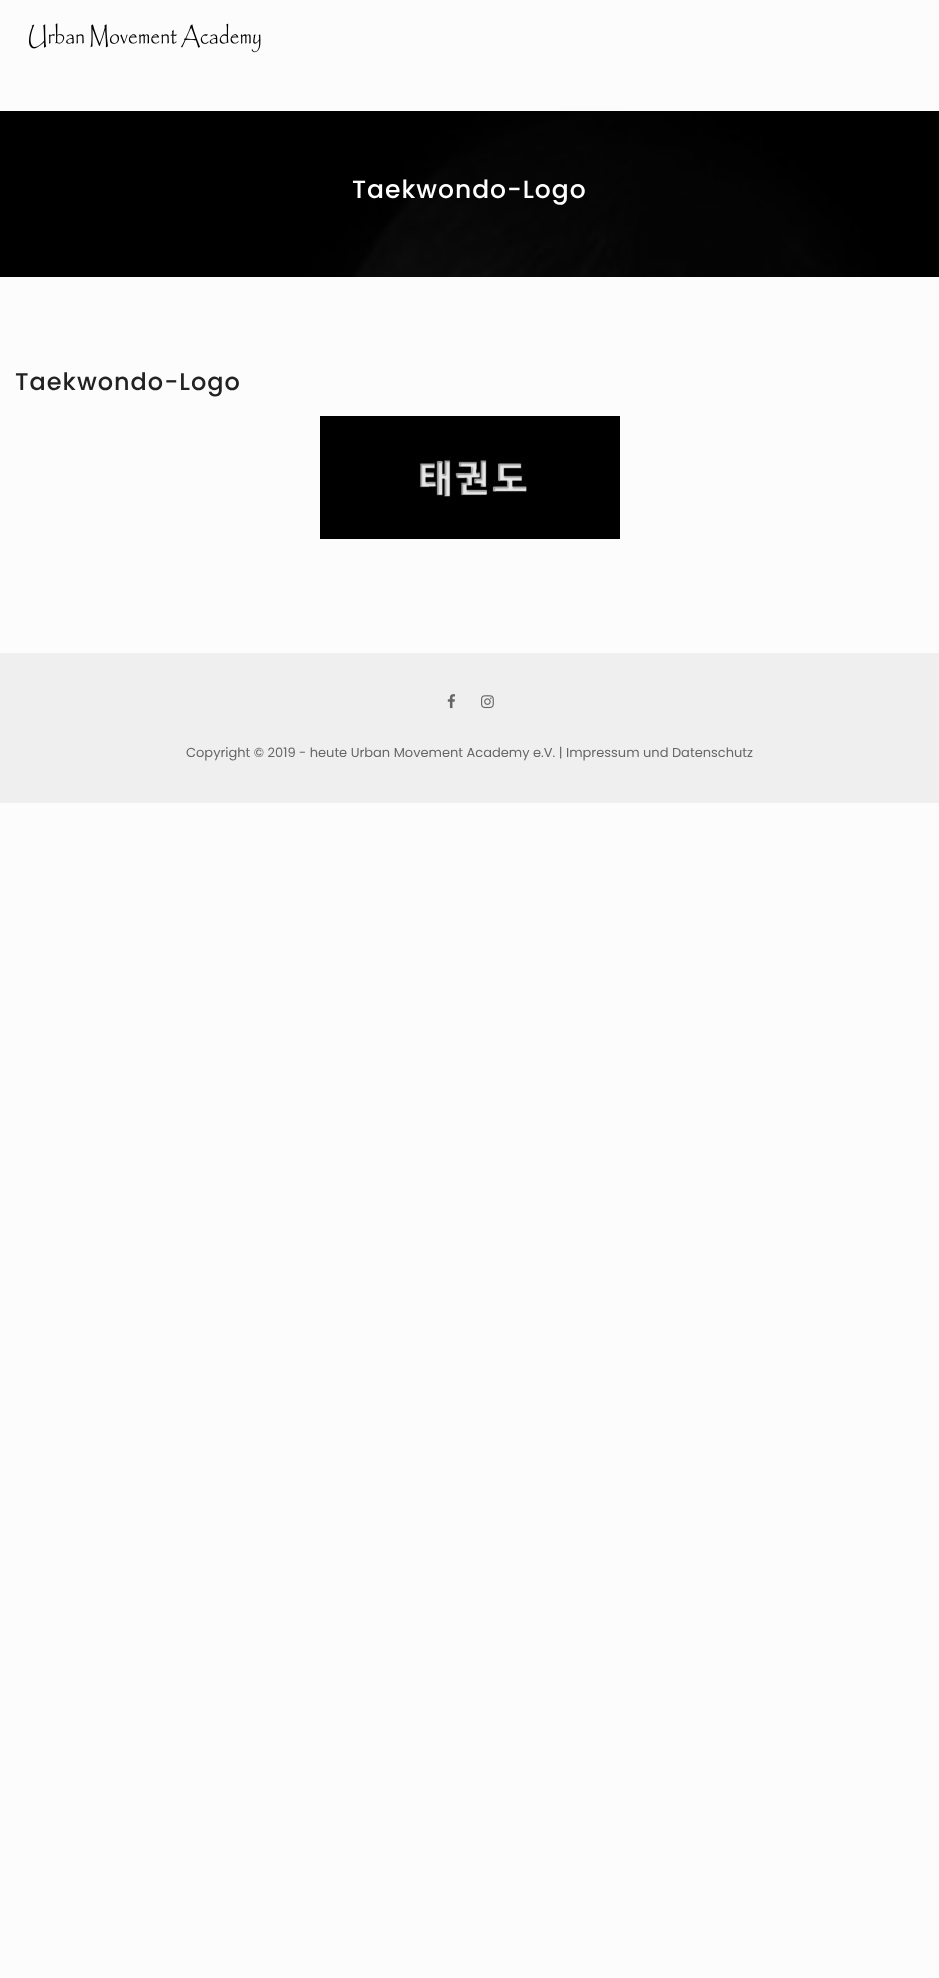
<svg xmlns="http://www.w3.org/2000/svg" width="939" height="1978">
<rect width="100%" height="100%" fill="#fcfcfc"/>
<image x="29" y="23" width="232" height="30" href="media/1.png"/>
<image x="0" y="111" width="939" height="166" href="media/2.png"/>
<text x="352" y="198" style="font-family:Poppins;font-size:25px;font-weight:500;letter-spacing:1px;fill:#fff">Taekwondo-Logo</text>
<text x="15" y="390" style="font-family:Poppins;font-size:24px;font-weight:500;letter-spacing:1px;fill:#222">Taekwondo-Logo</text>
<image x="320" y="416" width="300" height="123" href="media/3.png"/>
<rect y="653" width="939" height="150" fill="#efefef"/>
<image x="447" y="694" width="8" height="15" href="media/4.png"/>
<image x="481" y="695" width="13" height="14" href="media/5.png"/>
<text x="186" y="757" style="font-family:Poppins;font-size:13px;fill:#666">Copyright © 2019 - heute Urban Movement Academy e.V. | Impressum und Datenschutz</text>
</svg>
